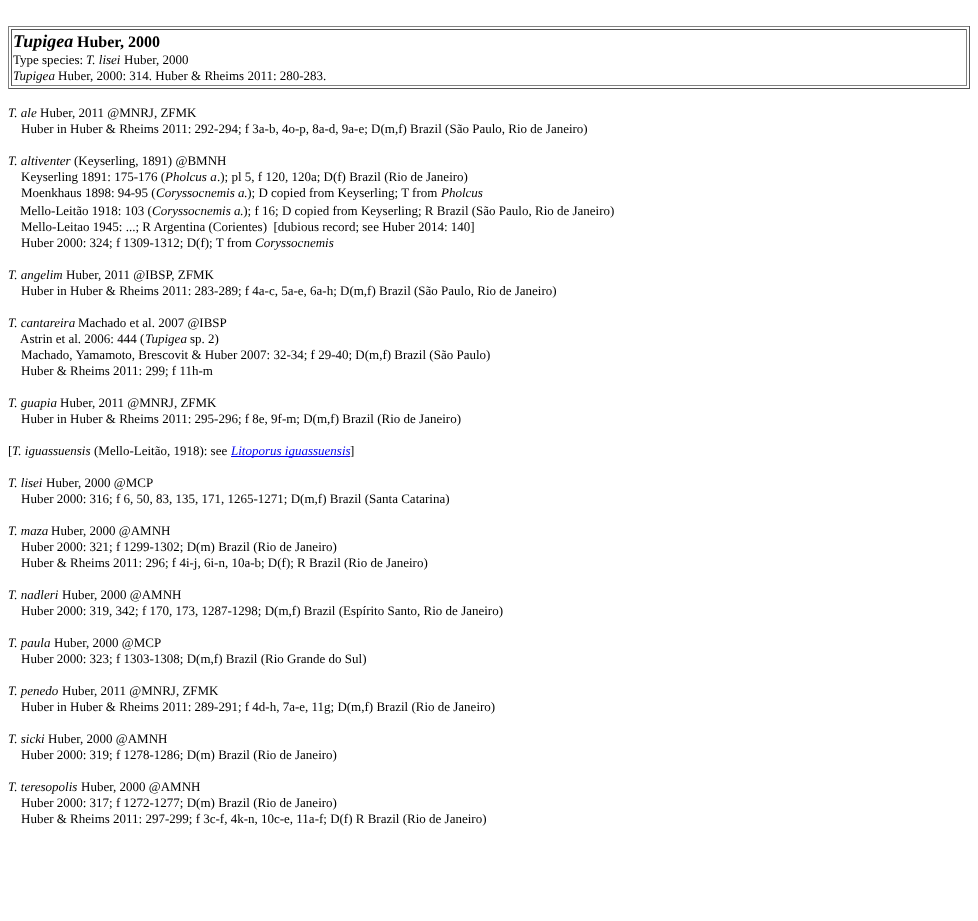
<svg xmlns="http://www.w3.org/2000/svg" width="978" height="921">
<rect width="100%" height="100%" fill="#fff"/>
<rect x="8" y="26" width="962" height="1" fill="#808080"/>
<rect x="969" y="26" width="1" height="63" fill="#555"/>
<rect x="8" y="88" width="962" height="1" fill="#555"/>
<rect x="8" y="26" width="1" height="63" fill="#808080"/>
<rect x="11" y="29" width="956" height="1" fill="#555"/>
<rect x="966" y="29" width="1" height="57" fill="#808080"/>
<rect x="11" y="85" width="956" height="1" fill="#808080"/>
<rect x="11" y="29" width="1" height="57" fill="#555"/>
<text x="13" y="47" style="font-family:Liberation Serif;font-size:18px;font-weight:bold;font-style:italic;fill:#000">Tupigea</text>
<text x="77" y="47" style="font-family:Liberation Serif;font-size:16px;font-weight:bold;fill:#000">Huber, 2000</text>
<text x="13" y="64" style="font-family:Liberation Serif;font-size:13px;fill:#000">Type species:</text>
<text x="86" y="64" style="font-family:Liberation Serif;font-size:13px;font-style:italic;fill:#000">T. lisei</text>
<text x="124" y="64" style="font-family:Liberation Serif;font-size:13px;fill:#000">Huber, 2000</text>
<text x="13" y="80" style="font-family:Liberation Serif;font-size:13px;font-style:italic;fill:#000">Tupigea</text>
<text x="58" y="80" style="font-family:Liberation Serif;font-size:13px;fill:#000">Huber, 2000: 314. Huber &amp; Rheims 2011: 280-283.</text>
<text x="8" y="117" style="font-family:Liberation Serif;font-size:13px;font-style:italic;fill:#000">T. ale</text>
<text x="40" y="117" style="font-family:Liberation Serif;font-size:13px;fill:#000">Huber, 2011 @MNRJ, ZFMK</text>
<text x="21" y="133" style="font-family:Liberation Serif;font-size:13px;fill:#000">Huber in Huber &amp; Rheims 2011: 292-294; f 3a-b, 4o-p, 8a-d, 9a-e; D(m,f) Brazil (São Paulo, Rio de Janeiro)</text>
<text x="8" y="165" style="font-family:Liberation Serif;font-size:13px;font-style:italic;fill:#000">T. altiventer</text>
<text x="74" y="165" style="font-family:Liberation Serif;font-size:13px;fill:#000">(Keyserling, 1891) @BMNH</text>
<text x="21" y="181" style="font-family:Liberation Serif;font-size:13px;fill:#000">Keyserling 1891: 175-176 (</text>
<text x="165" y="181" style="font-family:Liberation Serif;font-size:13px;font-style:italic;fill:#000">Pholcus a</text>
<text x="217" y="181" style="font-family:Liberation Serif;font-size:13px;fill:#000">.); pl 5, f 120, 120a; D(f) Brazil (Rio de Janeiro)</text>
<text x="21" y="197" style="font-family:Liberation Serif;font-size:13px;fill:#000">Moenkhaus 1898: 94-95 (</text>
<text x="156" y="197" style="font-family:Liberation Serif;font-size:13px;font-style:italic;fill:#000">Coryssocnemis a</text>
<text x="244" y="197" style="font-family:Liberation Serif;font-size:13px;fill:#000">.); D copied from Keyserling; T from</text>
<text x="441" y="197" style="font-family:Liberation Serif;font-size:13px;font-style:italic;fill:#000">Pholcus</text>
<text x="20" y="215" style="font-family:Liberation Serif;font-size:13px;fill:#000">Mello-Leitão 1918: 103 (</text>
<text x="152" y="215" style="font-family:Liberation Serif;font-size:13px;font-style:italic;fill:#000">Coryssocnemis a</text>
<text x="240" y="215" style="font-family:Liberation Serif;font-size:13px;fill:#000">.); f 16; D copied from Keyserling; R Brazil (São Paulo, Rio de Janeiro)</text>
<text x="21" y="231" style="font-family:Liberation Serif;font-size:13px;fill:#000" xml:space="preserve">Mello-Leitao 1945: ...; R Argentina (Corientes)  [dubious record; see Huber 2014: 140]</text>
<text x="21" y="247" style="font-family:Liberation Serif;font-size:13px;fill:#000">Huber 2000: 324; f 1309-1312; D(f); T from</text>
<text x="255" y="247" style="font-family:Liberation Serif;font-size:13px;font-style:italic;fill:#000">Coryssocnemis</text>
<text x="8" y="279" style="font-family:Liberation Serif;font-size:13px;font-style:italic;fill:#000">T. angelim</text>
<text x="66" y="279" style="font-family:Liberation Serif;font-size:13px;fill:#000">Huber, 2011 @IBSP, ZFMK</text>
<text x="21" y="295" style="font-family:Liberation Serif;font-size:13px;fill:#000">Huber in Huber &amp; Rheims 2011: 283-289; f 4a-c, 5a-e, 6a-h; D(m,f) Brazil (São Paulo, Rio de Janeiro)</text>
<text x="8" y="327" style="font-family:Liberation Serif;font-size:13px;font-style:italic;fill:#000">T. cantareira</text>
<text x="78" y="327" style="font-family:Liberation Serif;font-size:13px;fill:#000">Machado et al. 2007 @IBSP</text>
<text x="20" y="343" style="font-family:Liberation Serif;font-size:13px;fill:#000">Astrin et al. 2006: 444 (</text>
<text x="145" y="343" style="font-family:Liberation Serif;font-size:13px;font-style:italic;fill:#000">Tupigea</text>
<text x="190" y="343" style="font-family:Liberation Serif;font-size:13px;fill:#000">sp. 2)</text>
<text x="21" y="359" style="font-family:Liberation Serif;font-size:13px;fill:#000">Machado, Yamamoto, Brescovit &amp; Huber 2007: 32-34; f 29-40; D(m,f) Brazil (São Paulo)</text>
<text x="21" y="375" style="font-family:Liberation Serif;font-size:13px;fill:#000">Huber &amp; Rheims 2011: 299; f 11h-m</text>
<text x="8" y="407" style="font-family:Liberation Serif;font-size:13px;font-style:italic;fill:#000">T. guapia</text>
<text x="60" y="407" style="font-family:Liberation Serif;font-size:13px;fill:#000">Huber, 2011 @MNRJ, ZFMK</text>
<text x="21" y="423" style="font-family:Liberation Serif;font-size:13px;fill:#000">Huber in Huber &amp; Rheims 2011: 295-296; f 8e, 9f-m; D(m,f) Brazil (Rio de Janeiro)</text>
<text x="8" y="455" style="font-family:Liberation Serif;font-size:13px;fill:#000">[</text>
<text x="12" y="455" style="font-family:Liberation Serif;font-size:13px;font-style:italic;fill:#000">T. iguassuensis</text>
<text x="94" y="455" style="font-family:Liberation Serif;font-size:13px;fill:#000">(Mello-Leitão, 1918): see</text>
<rect x="231" y="456" width="119" height="1" fill="#00e"/>
<text x="231" y="455" style="font-family:Liberation Serif;font-size:13px;font-style:italic;fill:#00e">Litoporus iguassuensis</text>
<text x="350" y="455" style="font-family:Liberation Serif;font-size:13px;fill:#000">]</text>
<text x="8" y="487" style="font-family:Liberation Serif;font-size:13px;font-style:italic;fill:#000">T. lisei</text>
<text x="46" y="487" style="font-family:Liberation Serif;font-size:13px;fill:#000">Huber, 2000 @MCP</text>
<text x="21" y="503" style="font-family:Liberation Serif;font-size:13px;fill:#000">Huber 2000: 316; f 6, 50, 83, 135, 171, 1265-1271; D(m,f) Brazil (Santa Catarina)</text>
<text x="8" y="535" style="font-family:Liberation Serif;font-size:13px;font-style:italic;fill:#000">T. maza</text>
<text x="51" y="535" style="font-family:Liberation Serif;font-size:13px;fill:#000">Huber, 2000 @AMNH</text>
<text x="21" y="551" style="font-family:Liberation Serif;font-size:13px;fill:#000">Huber 2000: 321; f 1299-1302; D(m) Brazil (Rio de Janeiro)</text>
<text x="21" y="567" style="font-family:Liberation Serif;font-size:13px;fill:#000">Huber &amp; Rheims 2011: 296; f 4i-j, 6i-n, 10a-b; D(f); R Brazil (Rio de Janeiro)</text>
<text x="8" y="599" style="font-family:Liberation Serif;font-size:13px;font-style:italic;fill:#000">T. nadleri</text>
<text x="62" y="599" style="font-family:Liberation Serif;font-size:13px;fill:#000">Huber, 2000 @AMNH</text>
<text x="21" y="615" style="font-family:Liberation Serif;font-size:13px;fill:#000">Huber 2000: 319, 342; f 170, 173, 1287-1298; D(m,f) Brazil (Espírito Santo, Rio de Janeiro)</text>
<text x="8" y="647" style="font-family:Liberation Serif;font-size:13px;font-style:italic;fill:#000">T. paula</text>
<text x="54" y="647" style="font-family:Liberation Serif;font-size:13px;fill:#000">Huber, 2000 @MCP</text>
<text x="21" y="663" style="font-family:Liberation Serif;font-size:13px;fill:#000">Huber 2000: 323; f 1303-1308; D(m,f) Brazil (Rio Grande do Sul)</text>
<text x="8" y="695" style="font-family:Liberation Serif;font-size:13px;font-style:italic;fill:#000">T. penedo</text>
<text x="62" y="695" style="font-family:Liberation Serif;font-size:13px;fill:#000">Huber, 2011 @MNRJ, ZFMK</text>
<text x="21" y="711" style="font-family:Liberation Serif;font-size:13px;fill:#000">Huber in Huber &amp; Rheims 2011: 289-291; f 4d-h, 7a-e, 11g; D(m,f) Brazil (Rio de Janeiro)</text>
<text x="8" y="743" style="font-family:Liberation Serif;font-size:13px;font-style:italic;fill:#000">T. sicki</text>
<text x="48" y="743" style="font-family:Liberation Serif;font-size:13px;fill:#000">Huber, 2000 @AMNH</text>
<text x="21" y="759" style="font-family:Liberation Serif;font-size:13px;fill:#000">Huber 2000: 319; f 1278-1286; D(m) Brazil (Rio de Janeiro)</text>
<text x="8" y="791" style="font-family:Liberation Serif;font-size:13px;font-style:italic;fill:#000">T. teresopolis</text>
<text x="81" y="791" style="font-family:Liberation Serif;font-size:13px;fill:#000">Huber, 2000 @AMNH</text>
<text x="21" y="807" style="font-family:Liberation Serif;font-size:13px;fill:#000">Huber 2000: 317; f 1272-1277; D(m) Brazil (Rio de Janeiro)</text>
<text x="21" y="823" style="font-family:Liberation Serif;font-size:13px;fill:#000">Huber &amp; Rheims 2011: 297-299; f 3c-f, 4k-n, 10c-e, 11a-f; D(f) R Brazil (Rio de Janeiro)</text>
</svg>
